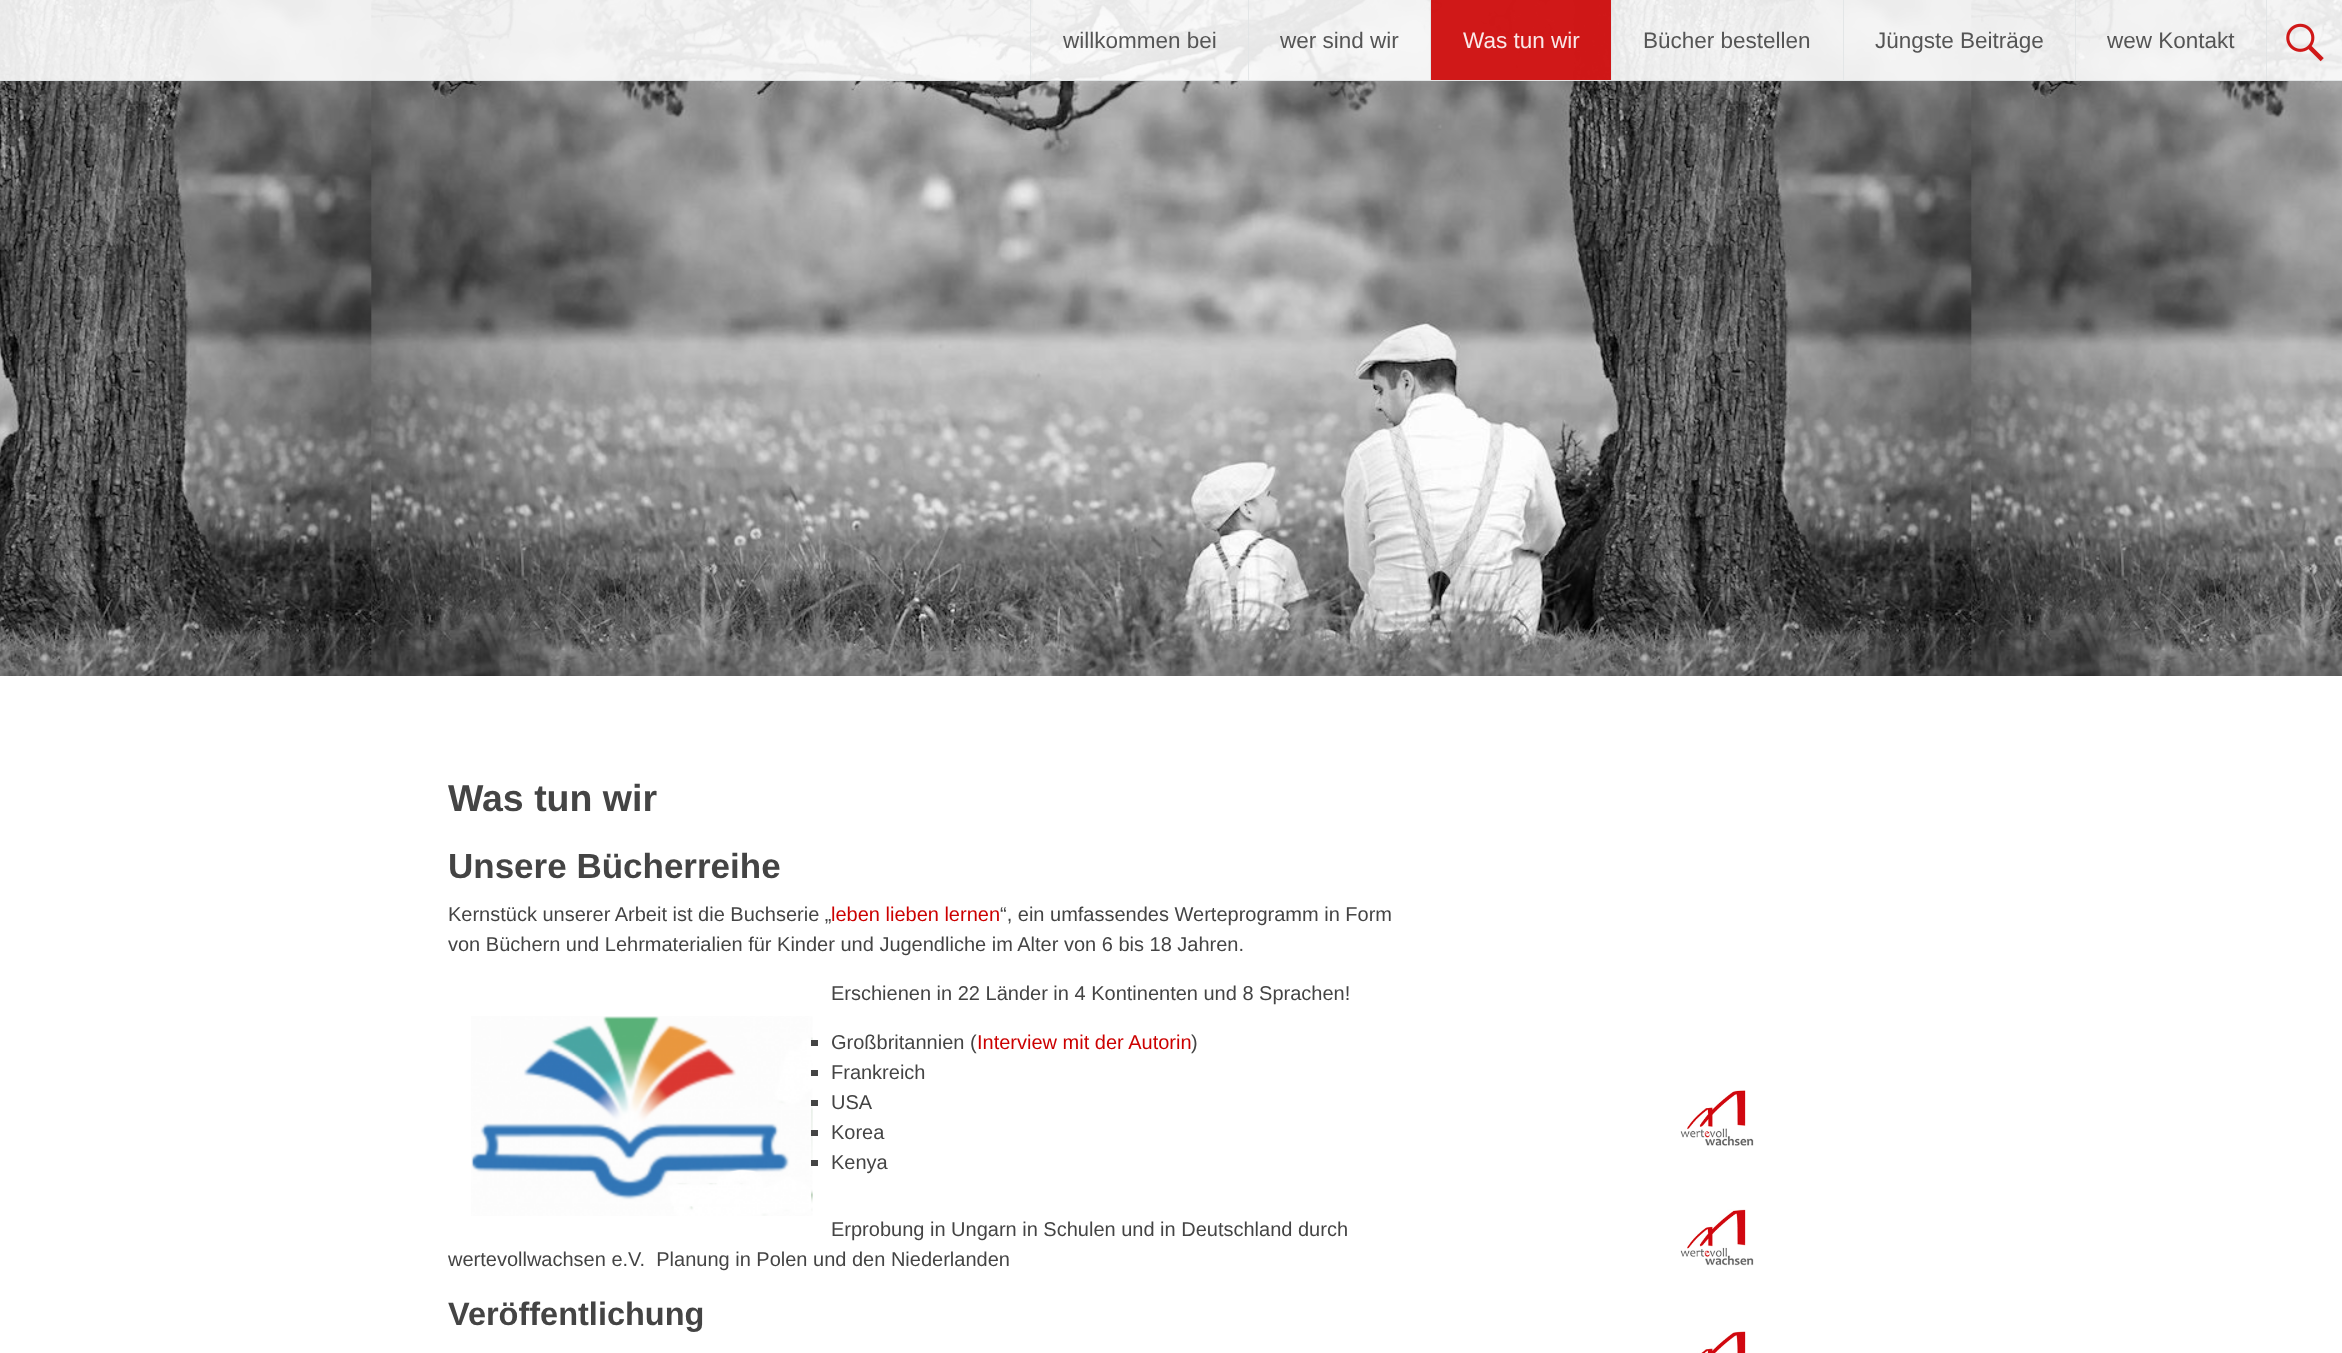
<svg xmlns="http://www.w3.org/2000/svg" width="2342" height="1353">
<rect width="100%" height="100%" fill="#fff"/>
<image x="0" y="0" width="2342" height="676" href="media/1.png"/>
<rect width="2342" height="81" fill="#ffffffe6"/>
<rect y="80" width="2342" height="1" fill="#e1e4e6e6"/>
<rect x="1030" width="1" height="80" fill="#e1e4e6e6"/>
<text x="1063" y="48" style="font-family:Arimo;font-size:22.5px;fill:#555">willkommen bei</text>
<rect x="1248" width="1" height="80" fill="#e1e4e6e6"/>
<text x="1280" y="48" style="font-family:Arimo;font-size:22.5px;fill:#555">wer sind wir</text>
<rect x="1430" width="1" height="80" fill="#e1e4e6e6"/>
<rect x="1431" width="180" height="80" fill="#cc0000e6"/>
<text x="1463" y="48" style="font-family:Arimo;font-size:22.5px;fill:#fae8e8">Was tun wir</text>
<rect x="1611" width="1" height="80" fill="#e1e4e6e6"/>
<text x="1643" y="48" style="font-family:Arimo;font-size:22.5px;fill:#555">Bücher bestellen</text>
<rect x="1843" width="1" height="80" fill="#e1e4e6e6"/>
<text x="1875" y="48" style="font-family:Arimo;font-size:22.5px;fill:#555">Jüngste Beiträge</text>
<rect x="2075" width="1" height="80" fill="#e1e4e6e6"/>
<text x="2107" y="48" style="font-family:Arimo;font-size:22.5px;fill:#555">wew Kontakt</text>
<rect x="2266" width="1" height="80" fill="#e1e4e6e6"/>
<image x="2286" y="23" width="38" height="39" href="media/2.png"/>
<text x="448" y="811" style="font-family:Arimo;font-size:37.5px;font-weight:bold;fill:#444">Was tun wir</text>
<text x="448" y="878" style="font-family:Arimo;font-size:35px;font-weight:bold;fill:#444">Unsere Bücherreihe</text>
<text x="448" y="921" style="font-family:Arimo;font-size:20px;fill:#444">Kernstück unserer Arbeit ist die Buchserie „</text>
<text x="831" y="921" style="font-family:Arimo;font-size:20px;fill:#c00">leben lieben lernen</text>
<text x="1000" y="921" style="font-family:Arimo;font-size:20px;fill:#444">“, ein umfassendes Werteprogramm in Form</text>
<text x="448" y="951" style="font-family:Arimo;font-size:20px;fill:#444">von Büchern und Lehrmaterialien für Kinder und Jugendliche im Alter von 6 bis 18 Jahren.</text>
<text x="831" y="1000" style="font-family:Arimo;font-size:20px;fill:#444">Erschienen in 22 Länder in 4 Kontinenten und 8 Sprachen!</text>
<image x="471" y="1016" width="342" height="200" href="media/3.png"/>
<rect x="811" y="1040" width="7" height="6" fill="#444"/>
<text x="831" y="1049" style="font-family:Arimo;font-size:20px;fill:#444">Großbritannien (</text>
<text x="977" y="1049" style="font-family:Arimo;font-size:20px;fill:#c00">Interview mit der Autorin</text>
<text x="1191" y="1049" style="font-family:Arimo;font-size:20px;fill:#444">)</text>
<rect x="811" y="1070" width="7" height="6" fill="#444"/>
<text x="831" y="1079" style="font-family:Arimo;font-size:20px;fill:#444">Frankreich</text>
<rect x="811" y="1100" width="7" height="6" fill="#444"/>
<text x="831" y="1109" style="font-family:Arimo;font-size:20px;fill:#444">USA</text>
<rect x="811" y="1130" width="7" height="6" fill="#444"/>
<text x="831" y="1139" style="font-family:Arimo;font-size:20px;fill:#444">Korea</text>
<rect x="811" y="1160" width="7" height="6" fill="#444"/>
<text x="831" y="1169" style="font-family:Arimo;font-size:20px;fill:#444">Kenya</text>
<text x="831" y="1236" style="font-family:Arimo;font-size:20px;fill:#444">Erprobung in Ungarn in Schulen und in Deutschland durch</text>
<text x="448" y="1266" style="font-family:Arimo;font-size:20px;fill:#444" xml:space="preserve">wertevollwachsen e.V.  Planung in Polen und den Niederlanden</text>
<text x="448" y="1325" style="font-family:Arimo;font-size:32.5px;font-weight:bold;fill:#444">Veröffentlichung</text>
<image x="1680" y="1090" width="74" height="263" href="media/4.png"/>
</svg>
